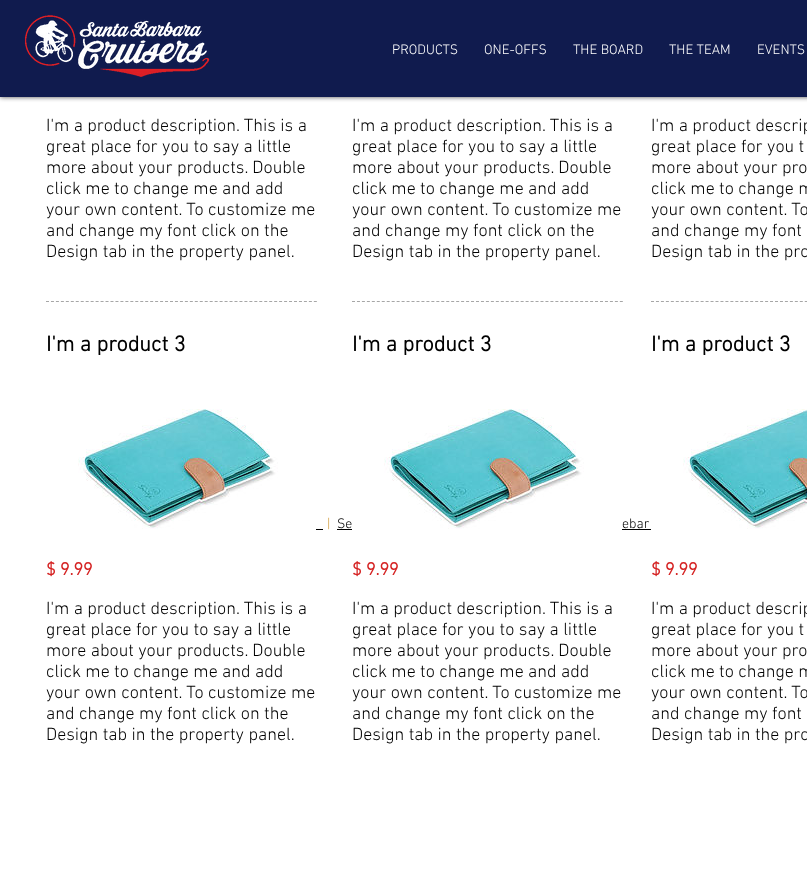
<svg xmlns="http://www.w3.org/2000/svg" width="807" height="889">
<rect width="100%" height="100%" fill="#fff"/>
<rect width="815" height="97" fill="#000000b3" filter="blur(2.5px)"/>
<rect width="807" height="97" fill="#101b4e"/>
<image x="24" y="15" width="186" height="62" href="media/1.png"/>
<text x="392" y="54" style="font-family:'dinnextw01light';font-size:14px;font-weight:300;fill:#fff">PRODUCTS</text>
<text x="484" y="54" style="font-family:'dinnextw01light';font-size:14px;font-weight:300;fill:#fff">ONE-OFFS</text>
<text x="573" y="54" style="font-family:'dinnextw01light';font-size:14px;font-weight:300;fill:#fff">THE BOARD</text>
<text x="669" y="54" style="font-family:'dinnextw01light';font-size:14px;font-weight:300;fill:#fff">THE TEAM</text>
<text x="757" y="54" style="font-family:'dinnextw01light';font-size:14px;font-weight:300;fill:#fff">EVENTS</text>
<text x="46" y="131" style="font-family:'dinnextw01light';font-size:18px;font-weight:300;fill:#000">I'm a product description. This is a</text>
<text x="46" y="152" style="font-family:'dinnextw01light';font-size:18px;font-weight:300;fill:#000">great place for you to say a little</text>
<text x="46" y="173" style="font-family:'dinnextw01light';font-size:18px;font-weight:300;fill:#000">more about your products. Double</text>
<text x="46" y="194" style="font-family:'dinnextw01light';font-size:18px;font-weight:300;fill:#000">click me to change me and add</text>
<text x="46" y="215" style="font-family:'dinnextw01light';font-size:18px;font-weight:300;fill:#000">your own content. To customize me</text>
<text x="46" y="236" style="font-family:'dinnextw01light';font-size:18px;font-weight:300;fill:#000">and change my font click on the</text>
<text x="46" y="257" style="font-family:'dinnextw01light';font-size:18px;font-weight:300;fill:#000">Design tab in the property panel.</text>
<path d="M46 301.5h271" fill="none" stroke="#a6a6a6" stroke-dasharray="3 1.96"/>
<text x="46" y="351" style="font-family:'dinnextw01light';font-size:22px;font-weight:bold;fill:#000">I'm a product 3</text>
<image x="65" y="409" width="251" height="121" href="media/2.png"/>
<text x="46" y="575" style="font-family:'dinnextw01light';font-size:18px;font-weight:bold;fill:#d52323">$ 9.99</text>
<text x="46" y="614" style="font-family:'dinnextw01light';font-size:18px;font-weight:300;fill:#000">I'm a product description. This is a</text>
<text x="46" y="635" style="font-family:'dinnextw01light';font-size:18px;font-weight:300;fill:#000">great place for you to say a little</text>
<text x="46" y="656" style="font-family:'dinnextw01light';font-size:18px;font-weight:300;fill:#000">more about your products. Double</text>
<text x="46" y="677" style="font-family:'dinnextw01light';font-size:18px;font-weight:300;fill:#000">click me to change me and add</text>
<text x="46" y="698" style="font-family:'dinnextw01light';font-size:18px;font-weight:300;fill:#000">your own content. To customize me</text>
<text x="46" y="719" style="font-family:'dinnextw01light';font-size:18px;font-weight:300;fill:#000">and change my font click on the</text>
<text x="46" y="740" style="font-family:'dinnextw01light';font-size:18px;font-weight:300;fill:#000">Design tab in the property panel.</text>
<text x="352" y="131" style="font-family:'dinnextw01light';font-size:18px;font-weight:300;fill:#000">I'm a product description. This is a</text>
<text x="352" y="152" style="font-family:'dinnextw01light';font-size:18px;font-weight:300;fill:#000">great place for you to say a little</text>
<text x="352" y="173" style="font-family:'dinnextw01light';font-size:18px;font-weight:300;fill:#000">more about your products. Double</text>
<text x="352" y="194" style="font-family:'dinnextw01light';font-size:18px;font-weight:300;fill:#000">click me to change me and add</text>
<text x="352" y="215" style="font-family:'dinnextw01light';font-size:18px;font-weight:300;fill:#000">your own content. To customize me</text>
<text x="352" y="236" style="font-family:'dinnextw01light';font-size:18px;font-weight:300;fill:#000">and change my font click on the</text>
<text x="352" y="257" style="font-family:'dinnextw01light';font-size:18px;font-weight:300;fill:#000">Design tab in the property panel.</text>
<path d="M352 301.5h271" fill="none" stroke="#a6a6a6" stroke-dasharray="3 1.96"/>
<text x="352" y="351" style="font-family:'dinnextw01light';font-size:22px;font-weight:bold;fill:#000">I'm a product 3</text>
<image x="352" y="409" width="270" height="122" href="media/3.png"/>
<text x="352" y="575" style="font-family:'dinnextw01light';font-size:18px;font-weight:bold;fill:#d52323">$ 9.99</text>
<text x="352" y="614" style="font-family:'dinnextw01light';font-size:18px;font-weight:300;fill:#000">I'm a product description. This is a</text>
<text x="352" y="635" style="font-family:'dinnextw01light';font-size:18px;font-weight:300;fill:#000">great place for you to say a little</text>
<text x="352" y="656" style="font-family:'dinnextw01light';font-size:18px;font-weight:300;fill:#000">more about your products. Double</text>
<text x="352" y="677" style="font-family:'dinnextw01light';font-size:18px;font-weight:300;fill:#000">click me to change me and add</text>
<text x="352" y="698" style="font-family:'dinnextw01light';font-size:18px;font-weight:300;fill:#000">your own content. To customize me</text>
<text x="352" y="719" style="font-family:'dinnextw01light';font-size:18px;font-weight:300;fill:#000">and change my font click on the</text>
<text x="352" y="740" style="font-family:'dinnextw01light';font-size:18px;font-weight:300;fill:#000">Design tab in the property panel.</text>
<text x="651" y="131" style="font-family:'dinnextw01light';font-size:18px;font-weight:300;fill:#000">I'm a product descrip</text>
<text x="651" y="152" style="font-family:'dinnextw01light';font-size:18px;font-weight:300;fill:#000">great place for you t</text>
<text x="651" y="173" style="font-family:'dinnextw01light';font-size:18px;font-weight:300;fill:#000">more about your pro</text>
<text x="651" y="194" style="font-family:'dinnextw01light';font-size:18px;font-weight:300;fill:#000">click me to change m</text>
<text x="651" y="215" style="font-family:'dinnextw01light';font-size:18px;font-weight:300;fill:#000">your own content. To</text>
<text x="651" y="236" style="font-family:'dinnextw01light';font-size:18px;font-weight:300;fill:#000">and change my font</text>
<text x="651" y="257" style="font-family:'dinnextw01light';font-size:18px;font-weight:300;fill:#000">Design tab in the pro</text>
<path d="M651 301.5h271" fill="none" stroke="#a6a6a6" stroke-dasharray="3 1.96"/>
<text x="651" y="351" style="font-family:'dinnextw01light';font-size:22px;font-weight:bold;fill:#000">I'm a product 3</text>
<rect x="622" y="529" width="34" height="1" fill="#000"/>
<image x="651" y="409" width="156" height="121" href="media/4.png"/>
<text x="651" y="575" style="font-family:'dinnextw01light';font-size:18px;font-weight:bold;fill:#d52323">$ 9.99</text>
<text x="651" y="614" style="font-family:'dinnextw01light';font-size:18px;font-weight:300;fill:#000">I'm a product descrip</text>
<text x="651" y="635" style="font-family:'dinnextw01light';font-size:18px;font-weight:300;fill:#000">great place for you t</text>
<text x="651" y="656" style="font-family:'dinnextw01light';font-size:18px;font-weight:300;fill:#000">more about your pro</text>
<text x="651" y="677" style="font-family:'dinnextw01light';font-size:18px;font-weight:300;fill:#000">click me to change m</text>
<text x="651" y="698" style="font-family:'dinnextw01light';font-size:18px;font-weight:300;fill:#000">your own content. To</text>
<text x="651" y="719" style="font-family:'dinnextw01light';font-size:18px;font-weight:300;fill:#000">and change my font</text>
<text x="651" y="740" style="font-family:'dinnextw01light';font-size:18px;font-weight:300;fill:#000">Design tab in the pro</text>
<text x="327" y="528" style="font-family:'dinnextw01light';font-size:14px;font-weight:300;fill:#ce9734">|</text>
<rect x="316" y="529" width="7" height="1" fill="#000"/>
<text x="337" y="528" style="font-family:'dinnextw01light';font-size:14px;font-weight:300;fill:#000">Se</text>
<rect x="337" y="529" width="15" height="1" fill="#000"/>
<text x="622" y="528" style="font-family:'dinnextw01light';font-size:14px;font-weight:300;fill:#000">ebar</text>
</svg>
